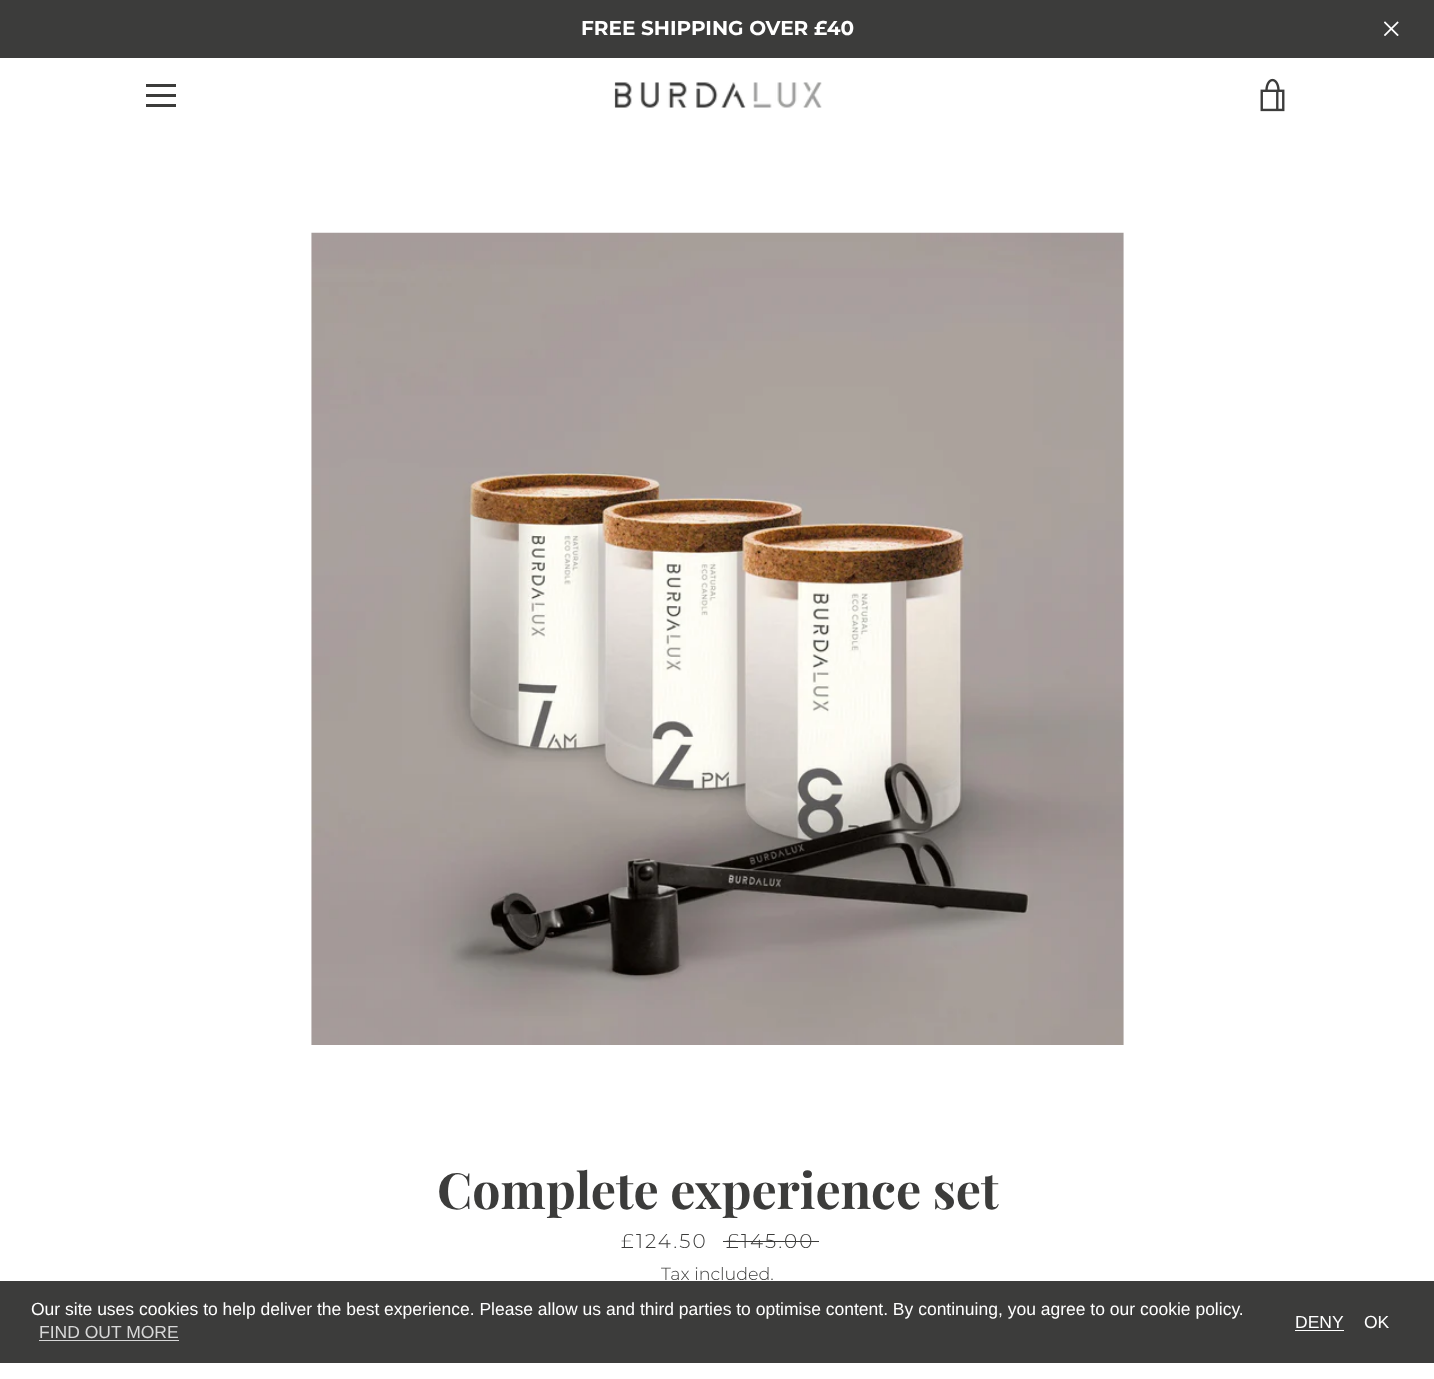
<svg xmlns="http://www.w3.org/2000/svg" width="1434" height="1379">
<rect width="100%" height="100%" fill="#fff"/>
<rect width="1434" height="58" fill="#3c3c3b"/>
<text x="581" y="35" style="font-family:Montserrat;font-size:20px;font-weight:bold;fill:#fff">FREE SHIPPING OVER £40</text>
<image x="1384" y="21" width="15" height="15" href="media/1.png"/>
<rect x="146" y="84" width="30" height="3" fill="#3c3c3b"/>
<rect x="146" y="94" width="30" height="3" fill="#3c3c3b"/>
<rect x="146" y="104" width="30" height="3" fill="#3c3c3b"/>
<image x="614" y="82" width="208" height="26" href="media/2.png"/>
<image x="1260" y="78" width="25" height="34" href="media/3.png"/>
<image x="311" y="232" width="813" height="813" href="media/4.png"/>
<text x="437" y="1209" style="font-family:Playfair Display;font-size:50px;font-weight:bold;fill:#3c3c3b">Complete experience set</text>
<text x="621" y="1248" style="font-family:Montserrat;font-size:20px;font-weight:300;letter-spacing:2px;fill:#3c3c3b">£124.50</text>
<text x="726" y="1248" style="font-family:Montserrat;font-size:20px;font-weight:300;letter-spacing:2px;fill:#3c3c3b">£145.00</text>
<rect x="723" y="1241" width="96" height="1" fill="#3c3c3b"/>
<text x="661" y="1280" style="font-family:Montserrat;font-size:17.5px;font-weight:300;fill:#3c3c3b">Tax included.</text>
<rect y="1281" width="1434" height="82" fill="#3c3c3b"/>
<text x="31" y="1315" style="font-family:Liberation Sans;font-size:17.5px;fill:#fff">Our site uses cookies to help deliver the best experience. Please allow us and third parties to optimise content. By continuing, you agree to our cookie policy.</text>
<text x="39" y="1338" style="font-family:Liberation Sans;font-size:17.5px;fill:#d8d8d8">FIND OUT MORE</text>
<rect x="39" y="1340" width="140" height="1" fill="#d8d8d8"/>
<text x="1295" y="1328" style="font-family:Liberation Sans;font-size:17.5px;fill:#fff">DENY</text>
<rect x="1295" y="1330" width="49" height="1" fill="#fff"/>
<text x="1364" y="1328" style="font-family:Liberation Sans;font-size:17.5px;fill:#fff">OK</text>
</svg>
